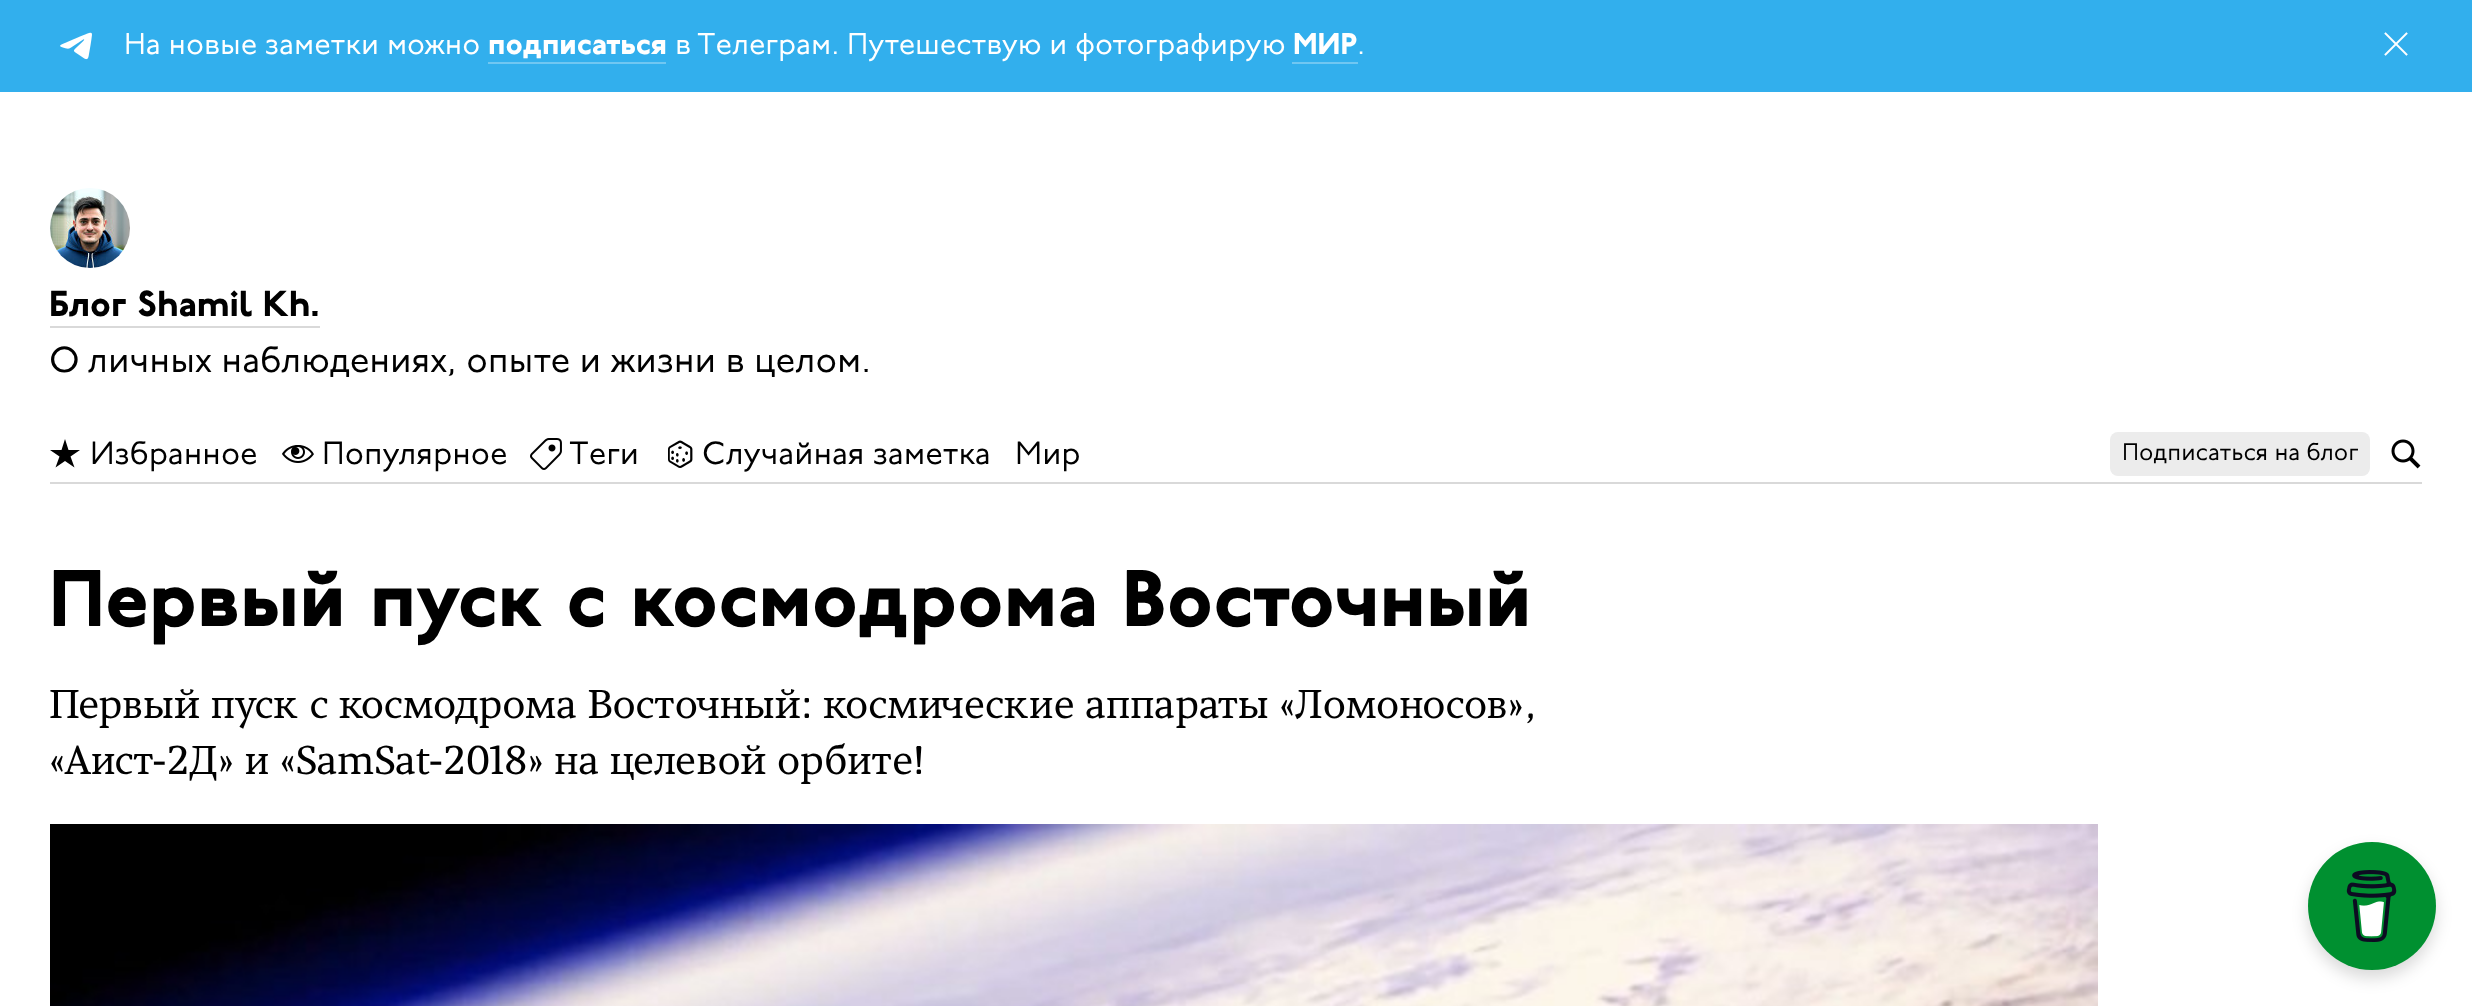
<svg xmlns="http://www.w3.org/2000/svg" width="2472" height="1006">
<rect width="100%" height="100%" fill="#fff"/>
<rect width="2472" height="92" fill="#32afed"/>
<image x="60" y="32" width="32" height="28" href="media/1.png"/>
<text x="124" y="54" style="font-family:'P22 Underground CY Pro';font-size:30px;fill:#fff">На новые заметки можно</text>
<text x="488" y="54" style="font-family:'P22 Underground CY Pro';font-size:30px;font-weight:900;fill:#fff">подписаться</text>
<rect x="488" y="62" width="178" height="2" fill="#70c7f2"/>
<text x="675" y="54" style="font-family:'P22 Underground CY Pro';font-size:30px;fill:#fff">в Телеграм. Путешествую и фотографирую</text>
<text x="1293" y="54" style="font-family:'P22 Underground CY Pro';font-size:30px;font-weight:900;fill:#fff">МИР</text>
<rect x="1292" y="62" width="66" height="2" fill="#70c7f2"/>
<text x="1357" y="54" style="font-family:'P22 Underground CY Pro';font-size:30px;fill:#fff">.</text>
<image x="2384" y="32" width="24" height="24" href="media/2.png"/>
<image x="50" y="188" width="80" height="80" href="media/3.png"/>
<text x="49" y="316" style="font-family:'P22 Underground CY Pro';font-size:36px;font-weight:900;fill:#000">Блог Shamil Kh.</text>
<rect x="50" y="326" width="270" height="2" fill="#d9d9d9"/>
<text x="49" y="372" style="font-family:'P22 Underground CY Pro';font-size:36px;fill:#000">О личных наблюдениях, опыте и жизни в целом.</text>
<path d="M59.5 456.5l-4 11l9.5-6.5l9.5 6.5l-4-11l9.5-6.5h-11.5l-3.5-11l-3.5 11h-11.5z" fill="#000"/>
<text x="90" y="464" style="font-family:'P22 Underground CY Pro';font-size:32px;fill:#000">Избранное</text>
<image x="282" y="445" width="32" height="18" href="media/4.png"/>
<text x="322" y="464" style="font-family:'P22 Underground CY Pro';font-size:32px;fill:#000">Популярное</text>
<image x="530" y="438" width="32" height="32" href="media/5.png"/>
<text x="569" y="464" style="font-family:'P22 Underground CY Pro';font-size:32px;fill:#000">Теги</text>
<image x="668" y="440" width="25" height="28" href="media/6.png"/>
<text x="702" y="464" style="font-family:'P22 Underground CY Pro';font-size:32px;fill:#000">Случайная заметка</text>
<text x="1015" y="464" style="font-family:'P22 Underground CY Pro';font-size:32px;fill:#000">Мир</text>
<rect x="2110" y="432" width="260" height="44" rx="8" fill="#ececec"/>
<text x="2122" y="460" style="font-family:'P22 Underground CY Pro';font-size:24px;fill:#000">Подписаться на блог</text>
<image x="2391" y="439" width="30" height="30" href="media/7.png"/>
<rect x="50" y="482" width="2372" height="2" fill="#d9d9d9"/>
<text x="49" y="626" style="font-family:'P22 Underground CY Pro';font-size:80px;font-weight:900;fill:#000">Первый пуск с космодрома Восточный</text>
<text x="49" y="718" style="font-family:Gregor;font-size:40px;fill:#000">Первый пуск с космодрома Восточный: космические аппараты «Ломоносов»,</text>
<text x="49" y="774" style="font-family:Gregor;font-size:40px;fill:#000">«Аист-2Д» и «SamSat-2018» на целевой орбите!</text>
<image x="50" y="824" width="2048" height="182" href="media/8.png"/>
<rect x="2308" y="850" width="128" height="128" rx="64" fill="#00000026" filter="blur(8px)"/>
<circle cx="2372" cy="906" r="64" fill="#009030"/>
<image x="2346" y="870" width="51" height="72" href="media/9.png"/>
</svg>
